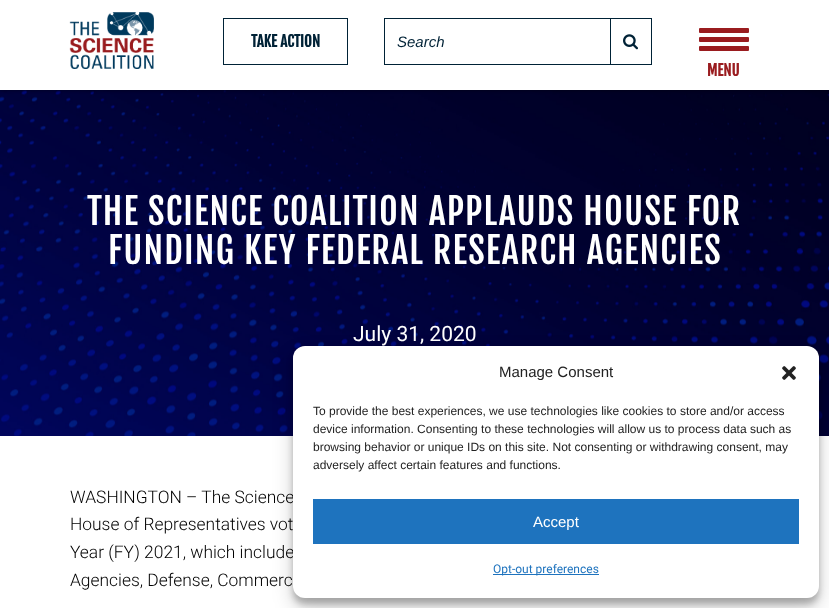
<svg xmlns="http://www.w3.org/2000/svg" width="829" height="608">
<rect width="100%" height="100%" fill="#fff"/>
<image x="0" y="90" width="829" height="346" href="media/3.png"/>
<rect y="1" width="829" height="90" fill="#0000004d" filter="blur(1.5px)"/>
<rect width="829" height="90" fill="#fff"/>
<image x="69" y="12" width="85" height="57" href="media/1.png"/>
<rect x="223.5" y="18.5" width="124" height="46" fill="none" stroke="#002236"/>
<text x="251" y="47" style="font-family:Fjalla One;font-size:15px;font-weight:bold;fill:#002236">TAKE ACTION</text>
<rect x="384.5" y="18.5" width="226" height="46" fill="none" stroke="#002236"/>
<text x="397" y="47" style="font-family:Liberation Sans;font-size:15px;font-style:italic;fill:#002236">Search</text>
<rect x="611" y="18" width="41" height="1" fill="#002236"/>
<rect x="651" y="18" width="1" height="47" fill="#002236"/>
<rect x="611" y="64" width="41" height="1" fill="#002236"/>
<image x="623" y="34" width="15" height="16" href="media/2.png"/>
<rect x="699" y="28" width="50" height="5" rx="1" fill="#9a1c1f"/>
<rect x="699" y="37" width="50" height="5" rx="1" fill="#9a1c1f"/>
<rect x="699" y="46" width="50" height="5" rx="1" fill="#9a1c1f"/>
<text x="707" y="76" style="font-family:Fjalla One;font-size:15px;font-weight:bold;fill:#9a1c1f">MENU</text>
<text x="87" y="225" style="font-family:Fjalla One;font-size:36px;letter-spacing:1.2px;fill:#fff">THE SCIENCE COALITION APPLAUDS HOUSE FOR</text>
<text x="108" y="264" style="font-family:Fjalla One;font-size:36px;letter-spacing:1.2px;fill:#fff">FUNDING KEY FEDERAL RESEARCH AGENCIES</text>
<text x="353" y="341" style="font-family:Roboto;font-size:21px;fill:#fff">July 31, 2020</text>
<text x="70" y="503" style="font-family:Roboto;font-size:17.4px;font-weight:300;fill:#000">WASHINGTON – The Science</text>
<text x="70" y="530" style="font-family:Roboto;font-size:17.4px;font-weight:300;fill:#000">House of Representatives vot</text>
<text x="70" y="558" style="font-family:Roboto;font-size:17.4px;font-weight:300;fill:#000">Year (FY) 2021, which include</text>
<text x="70" y="586" style="font-family:Roboto;font-size:17.4px;font-weight:300;fill:#000">Agencies, Defense, Commerc</text>
<rect x="293" y="352" width="526" height="252" rx="12" fill="#0000003b" filter="blur(3px)"/>
<rect x="293" y="356" width="526" height="252" rx="12" fill="#00000030" filter="blur(10px)"/>
<rect x="293" y="346" width="526" height="252" rx="12" fill="#fff"/>
<text x="499" y="377" style="font-family:Liberation Sans;font-size:15px;fill:#222">Manage Consent</text>
<image x="782" y="366" width="14" height="14" href="media/4.png"/>
<text x="313" y="415" style="font-family:Liberation Sans;font-size:12px;fill:#222">To provide the best experiences, we use technologies like cookies to store and/or access</text>
<text x="313" y="433" style="font-family:Liberation Sans;font-size:12px;fill:#222">device information. Consenting to these technologies will allow us to process data such as</text>
<text x="313" y="451" style="font-family:Liberation Sans;font-size:12px;fill:#222">browsing behavior or unique IDs on this site. Not consenting or withdrawing consent, may</text>
<text x="313" y="469" style="font-family:Liberation Sans;font-size:12px;fill:#222">adversely affect certain features and functions.</text>
<rect x="313" y="499" width="486" height="45" fill="#1e73be"/>
<text x="533" y="527" style="font-family:Liberation Sans;font-size:15px;fill:#fff">Accept</text>
<rect x="493" y="574" width="106" height="1" fill="#1e73be"/>
<text x="493" y="573" style="font-family:Roboto;font-size:12px;fill:#1e73be">Opt-out preferences</text>
</svg>
